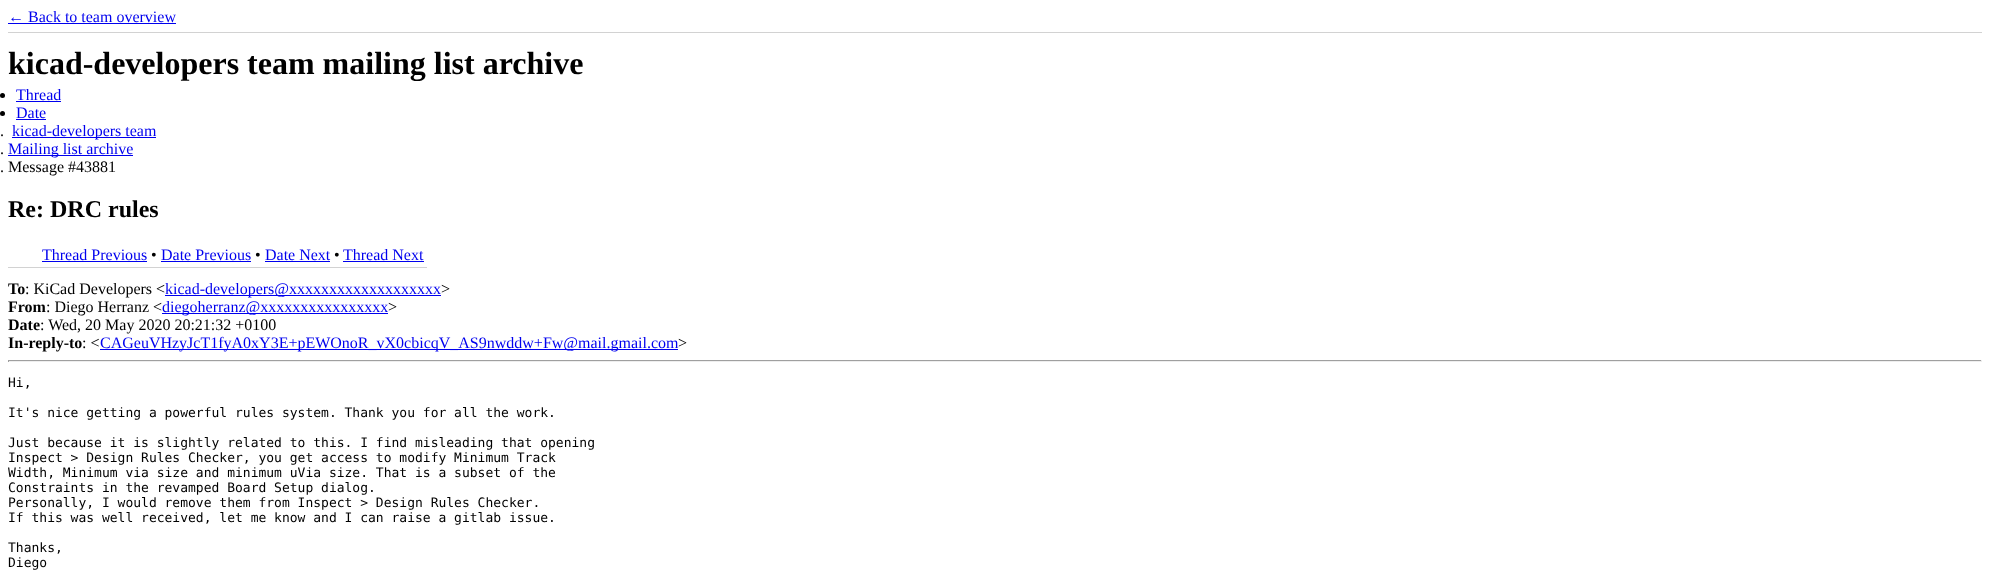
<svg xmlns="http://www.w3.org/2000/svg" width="1990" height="571">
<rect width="100%" height="100%" fill="#fff"/>
<rect x="8" y="32" width="1974" height="1" fill="#d2d2d2"/>
<text x="8" y="22" style="font-family:Liberation Serif;font-size:16px;fill:#00e">← Back to team overview</text>
<rect x="8" y="23" width="168" height="1" fill="#00e"/>
<text x="8" y="74" style="font-family:Liberation Serif;font-size:32px;font-weight:bold;fill:#000">kicad-developers team mailing list archive</text>
<circle cx="2.5" cy="95.5" r="2.5" fill="#000"/>
<text x="16" y="100" style="font-family:Liberation Serif;font-size:16px;fill:#00e">Thread</text>
<rect x="16" y="101" width="45" height="1" fill="#00e"/>
<circle cx="2.5" cy="113.5" r="2.5" fill="#000"/>
<text x="16" y="118" style="font-family:Liberation Serif;font-size:16px;fill:#00e">Date</text>
<rect x="16" y="119" width="30" height="1" fill="#00e"/>
<text x="0" y="136" style="font-family:Liberation Serif;font-size:16px;fill:#000">.</text>
<rect x="12" y="137" width="144" height="1" fill="#00e"/>
<text x="12" y="136" style="font-family:Liberation Serif;font-size:16px;fill:#00e">kicad-developers team</text>
<text x="0" y="154" style="font-family:Liberation Serif;font-size:16px;fill:#000">.</text>
<rect x="8" y="155" width="125" height="1" fill="#00e"/>
<text x="8" y="154" style="font-family:Liberation Serif;font-size:16px;fill:#00e">Mailing list archive</text>
<text x="0" y="172" style="font-family:Liberation Serif;font-size:16px;fill:#000">. Message #43881</text>
<text x="8" y="217" style="font-family:Liberation Serif;font-size:24px;font-weight:bold;fill:#000">Re: DRC rules</text>
<rect x="8" y="267" width="419" height="1" fill="#d2d2d2"/>
<text x="42" y="260" style="font-family:Liberation Serif;font-size:16px;fill:#00e">Thread Previous</text>
<rect x="42" y="261" width="105" height="1" fill="#00e"/>
<text x="151" y="260" style="font-family:Liberation Serif;font-size:16px;fill:#000">•</text>
<text x="161" y="260" style="font-family:Liberation Serif;font-size:16px;fill:#00e">Date Previous</text>
<rect x="161" y="261" width="90" height="1" fill="#00e"/>
<text x="255" y="260" style="font-family:Liberation Serif;font-size:16px;fill:#000">•</text>
<text x="265" y="260" style="font-family:Liberation Serif;font-size:16px;fill:#00e">Date Next</text>
<rect x="265" y="261" width="65" height="1" fill="#00e"/>
<text x="334" y="260" style="font-family:Liberation Serif;font-size:16px;fill:#000">•</text>
<text x="343" y="260" style="font-family:Liberation Serif;font-size:16px;fill:#00e">Thread Next</text>
<rect x="343" y="261" width="81" height="1" fill="#00e"/>
<text x="8" y="294" style="font-family:Liberation Serif;font-size:16px;font-weight:bold;fill:#000">To</text>
<text x="25" y="294" style="font-family:Liberation Serif;font-size:16px;fill:#000">: KiCad Developers &lt;</text>
<rect x="165" y="295" width="276" height="1" fill="#00e"/>
<text x="165" y="294" style="font-family:Liberation Serif;font-size:16px;fill:#00e">kicad-developers@xxxxxxxxxxxxxxxxxxx</text>
<text x="441" y="294" style="font-family:Liberation Serif;font-size:16px;fill:#000">&gt;</text>
<text x="8" y="312" style="font-family:Liberation Serif;font-size:16px;font-weight:bold;fill:#000">From</text>
<text x="46" y="312" style="font-family:Liberation Serif;font-size:16px;fill:#000">: Diego Herranz &lt;</text>
<rect x="162" y="313" width="226" height="1" fill="#00e"/>
<text x="162" y="312" style="font-family:Liberation Serif;font-size:16px;fill:#00e">diegoherranz@xxxxxxxxxxxxxxxx</text>
<text x="388" y="312" style="font-family:Liberation Serif;font-size:16px;fill:#000">&gt;</text>
<text x="8" y="330" style="font-family:Liberation Serif;font-size:16px;font-weight:bold;fill:#000">Date</text>
<text x="40" y="330" style="font-family:Liberation Serif;font-size:16px;fill:#000">: Wed, 20 May 2020 20:21:32 +0100</text>
<text x="8" y="348" style="font-family:Liberation Serif;font-size:16px;font-weight:bold;fill:#000">In-reply-to</text>
<text x="82" y="348" style="font-family:Liberation Serif;font-size:16px;fill:#000">: &lt;</text>
<rect x="100" y="349" width="578" height="1" fill="#00e"/>
<text x="100" y="348" style="font-family:Liberation Serif;font-size:16px;fill:#00e">CAGeuVHzyJcT1fyA0xY3E+pEWOnoR_vX0cbicqV_AS9nwddw+Fw@mail.gmail.com</text>
<text x="678" y="348" style="font-family:Liberation Serif;font-size:16px;fill:#000">&gt;</text>
<rect x="8" y="360" width="1974" height="1" fill="#9f9f9f"/>
<rect x="1981" y="360" width="1" height="2" fill="#eee"/>
<rect x="8" y="361" width="1974" height="1" fill="#eee"/>
<rect x="8" y="360" width="1" height="2" fill="#9f9f9f"/>
<text x="8" y="387" style="font-family:DejaVu Sans Mono;font-size:13px;fill:#000">Hi,</text>
<text x="8" y="417" style="font-family:DejaVu Sans Mono;font-size:13px;fill:#000">It's nice getting a powerful rules system. Thank you for all the work.</text>
<text x="8" y="447" style="font-family:DejaVu Sans Mono;font-size:13px;fill:#000">Just because it is slightly related to this. I find misleading that opening</text>
<text x="8" y="462" style="font-family:DejaVu Sans Mono;font-size:13px;fill:#000">Inspect &gt; Design Rules Checker, you get access to modify Minimum Track</text>
<text x="8" y="477" style="font-family:DejaVu Sans Mono;font-size:13px;fill:#000">Width, Minimum via size and minimum uVia size. That is a subset of the</text>
<text x="8" y="492" style="font-family:DejaVu Sans Mono;font-size:13px;fill:#000">Constraints in the revamped Board Setup dialog.</text>
<text x="8" y="507" style="font-family:DejaVu Sans Mono;font-size:13px;fill:#000">Personally, I would remove them from Inspect &gt; Design Rules Checker.</text>
<text x="8" y="522" style="font-family:DejaVu Sans Mono;font-size:13px;fill:#000">If this was well received, let me know and I can raise a gitlab issue.</text>
<text x="8" y="552" style="font-family:DejaVu Sans Mono;font-size:13px;fill:#000">Thanks,</text>
<text x="8" y="567" style="font-family:DejaVu Sans Mono;font-size:13px;fill:#000">Diego</text>
</svg>
